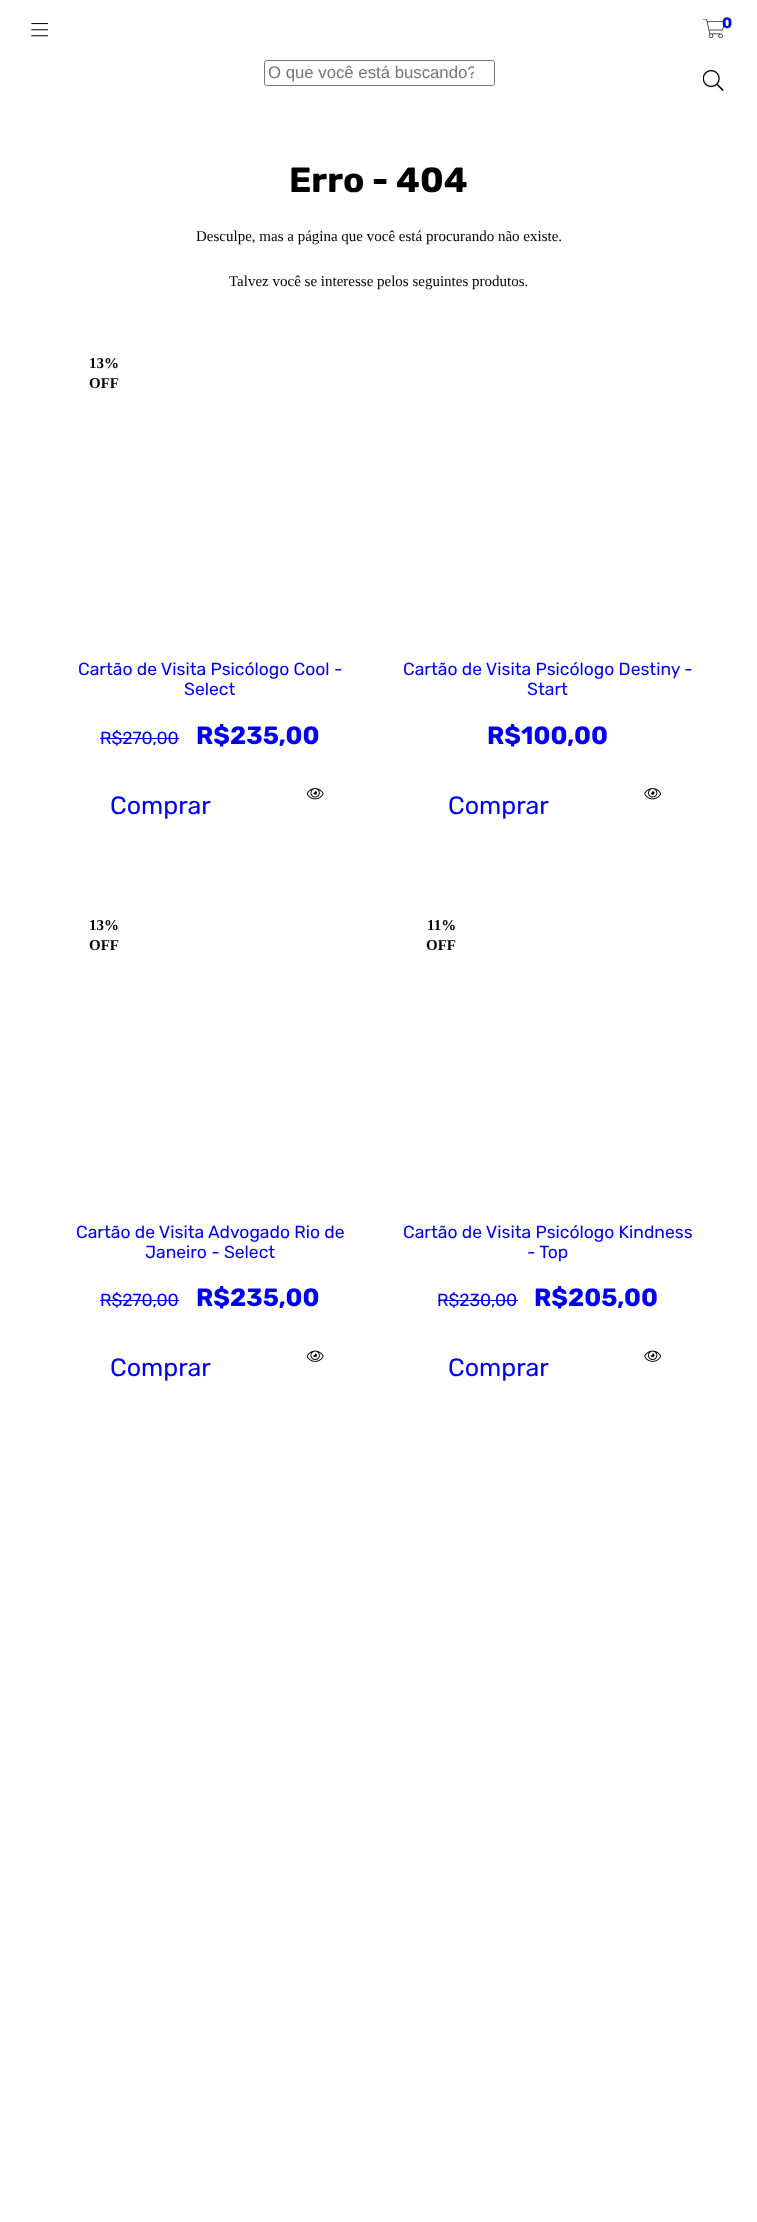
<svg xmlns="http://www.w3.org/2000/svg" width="757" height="2222">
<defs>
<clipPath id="clip1"><rect x="269" y="64" width="205" height="19"/></clipPath>
</defs>
<rect width="100%" height="100%" fill="#fff"/>
<image x="31" y="23" width="17" height="14" href="media/1.png"/>
<image x="703" y="19" width="22" height="19" href="media/2.png"/>
<text x="722" y="28" style="font-family:Rubik;font-size:15px;font-weight:bold;fill:#00e">0</text>
<rect x="264.5" y="60.5" width="230" height="25" rx="2" fill="none" stroke="#767676"/>
<g clip-path="url(#clip1)">
<text x="268" y="78" style="font-family:Liberation Sans;font-size:16.75px;fill:#757575">O que você está buscando?</text>
</g>
<image x="703" y="70" width="21" height="21" href="media/3.png"/>
<text x="289" y="192" style="font-family:Rubik;font-size:35px;font-weight:bold;fill:#000">Erro - 404</text>
<text x="196" y="241" style="font-family:Liberation Serif;font-size:15px;fill:#000">Desculpe, mas a página que você está procurando não existe.</text>
<text x="229" y="286" style="font-family:Liberation Serif;font-size:15px;fill:#000">Talvez você se interesse pelos seguintes produtos.</text>
<text x="89" y="368" style="font-family:Liberation Serif;font-size:15px;font-weight:bold;fill:#000">13%</text>
<text x="89" y="388" style="font-family:Liberation Serif;font-size:15px;font-weight:bold;fill:#000">OFF</text>
<text x="78" y="675" style="font-family:Rubik;font-size:17.5px;fill:#00e">Cartão de Visita Psicólogo Cool -</text>
<text x="184" y="695" style="font-family:Rubik;font-size:17.5px;fill:#00e">Select</text>
<text x="100" y="744" style="font-family:Rubik;font-size:17.5px;fill:#00e">R$270,00</text>
<rect x="100" y="738" width="79" height="1" fill="#00e"/>
<text x="196" y="744" style="font-family:Rubik;font-size:25px;font-weight:bold;fill:#00e">R$235,00</text>
<image x="306" y="788" width="18" height="12" href="media/4.png"/>
<text x="110" y="814" style="font-family:Rubik;font-size:25px;fill:#00e">Comprar</text>
<text x="403" y="675" style="font-family:Rubik;font-size:17.5px;fill:#00e">Cartão de Visita Psicólogo Destiny -</text>
<text x="527" y="695" style="font-family:Rubik;font-size:17.5px;fill:#00e">Start</text>
<text x="487" y="744" style="font-family:Rubik;font-size:25px;font-weight:bold;fill:#00e">R$100,00</text>
<image x="644" y="788" width="18" height="12" href="media/5.png"/>
<text x="448" y="814" style="font-family:Rubik;font-size:25px;fill:#00e">Comprar</text>
<text x="89" y="930" style="font-family:Liberation Serif;font-size:15px;font-weight:bold;fill:#000">13%</text>
<text x="89" y="950" style="font-family:Liberation Serif;font-size:15px;font-weight:bold;fill:#000">OFF</text>
<text x="76" y="1238" style="font-family:Rubik;font-size:17.5px;fill:#00e">Cartão de Visita Advogado Rio de</text>
<text x="145" y="1258" style="font-family:Rubik;font-size:17.5px;fill:#00e">Janeiro - Select</text>
<text x="100" y="1306" style="font-family:Rubik;font-size:17.5px;fill:#00e">R$270,00</text>
<rect x="100" y="1300" width="79" height="1" fill="#00e"/>
<text x="196" y="1306" style="font-family:Rubik;font-size:25px;font-weight:bold;fill:#00e">R$235,00</text>
<image x="306" y="1350" width="18" height="12" href="media/6.png"/>
<text x="110" y="1376" style="font-family:Rubik;font-size:25px;fill:#00e">Comprar</text>
<text x="427" y="930" style="font-family:Liberation Serif;font-size:15px;font-weight:bold;fill:#000">11%</text>
<text x="426" y="950" style="font-family:Liberation Serif;font-size:15px;font-weight:bold;fill:#000">OFF</text>
<text x="403" y="1238" style="font-family:Rubik;font-size:17.5px;fill:#00e">Cartão de Visita Psicólogo Kindness</text>
<text x="527" y="1258" style="font-family:Rubik;font-size:17.5px;fill:#00e">- Top</text>
<text x="437" y="1306" style="font-family:Rubik;font-size:17.5px;fill:#00e">R$230,00</text>
<rect x="438" y="1300" width="80" height="1" fill="#00e"/>
<text x="534" y="1306" style="font-family:Rubik;font-size:25px;font-weight:bold;fill:#00e">R$205,00</text>
<image x="644" y="1350" width="18" height="12" href="media/7.png"/>
<text x="448" y="1376" style="font-family:Rubik;font-size:25px;fill:#00e">Comprar</text>
</svg>
